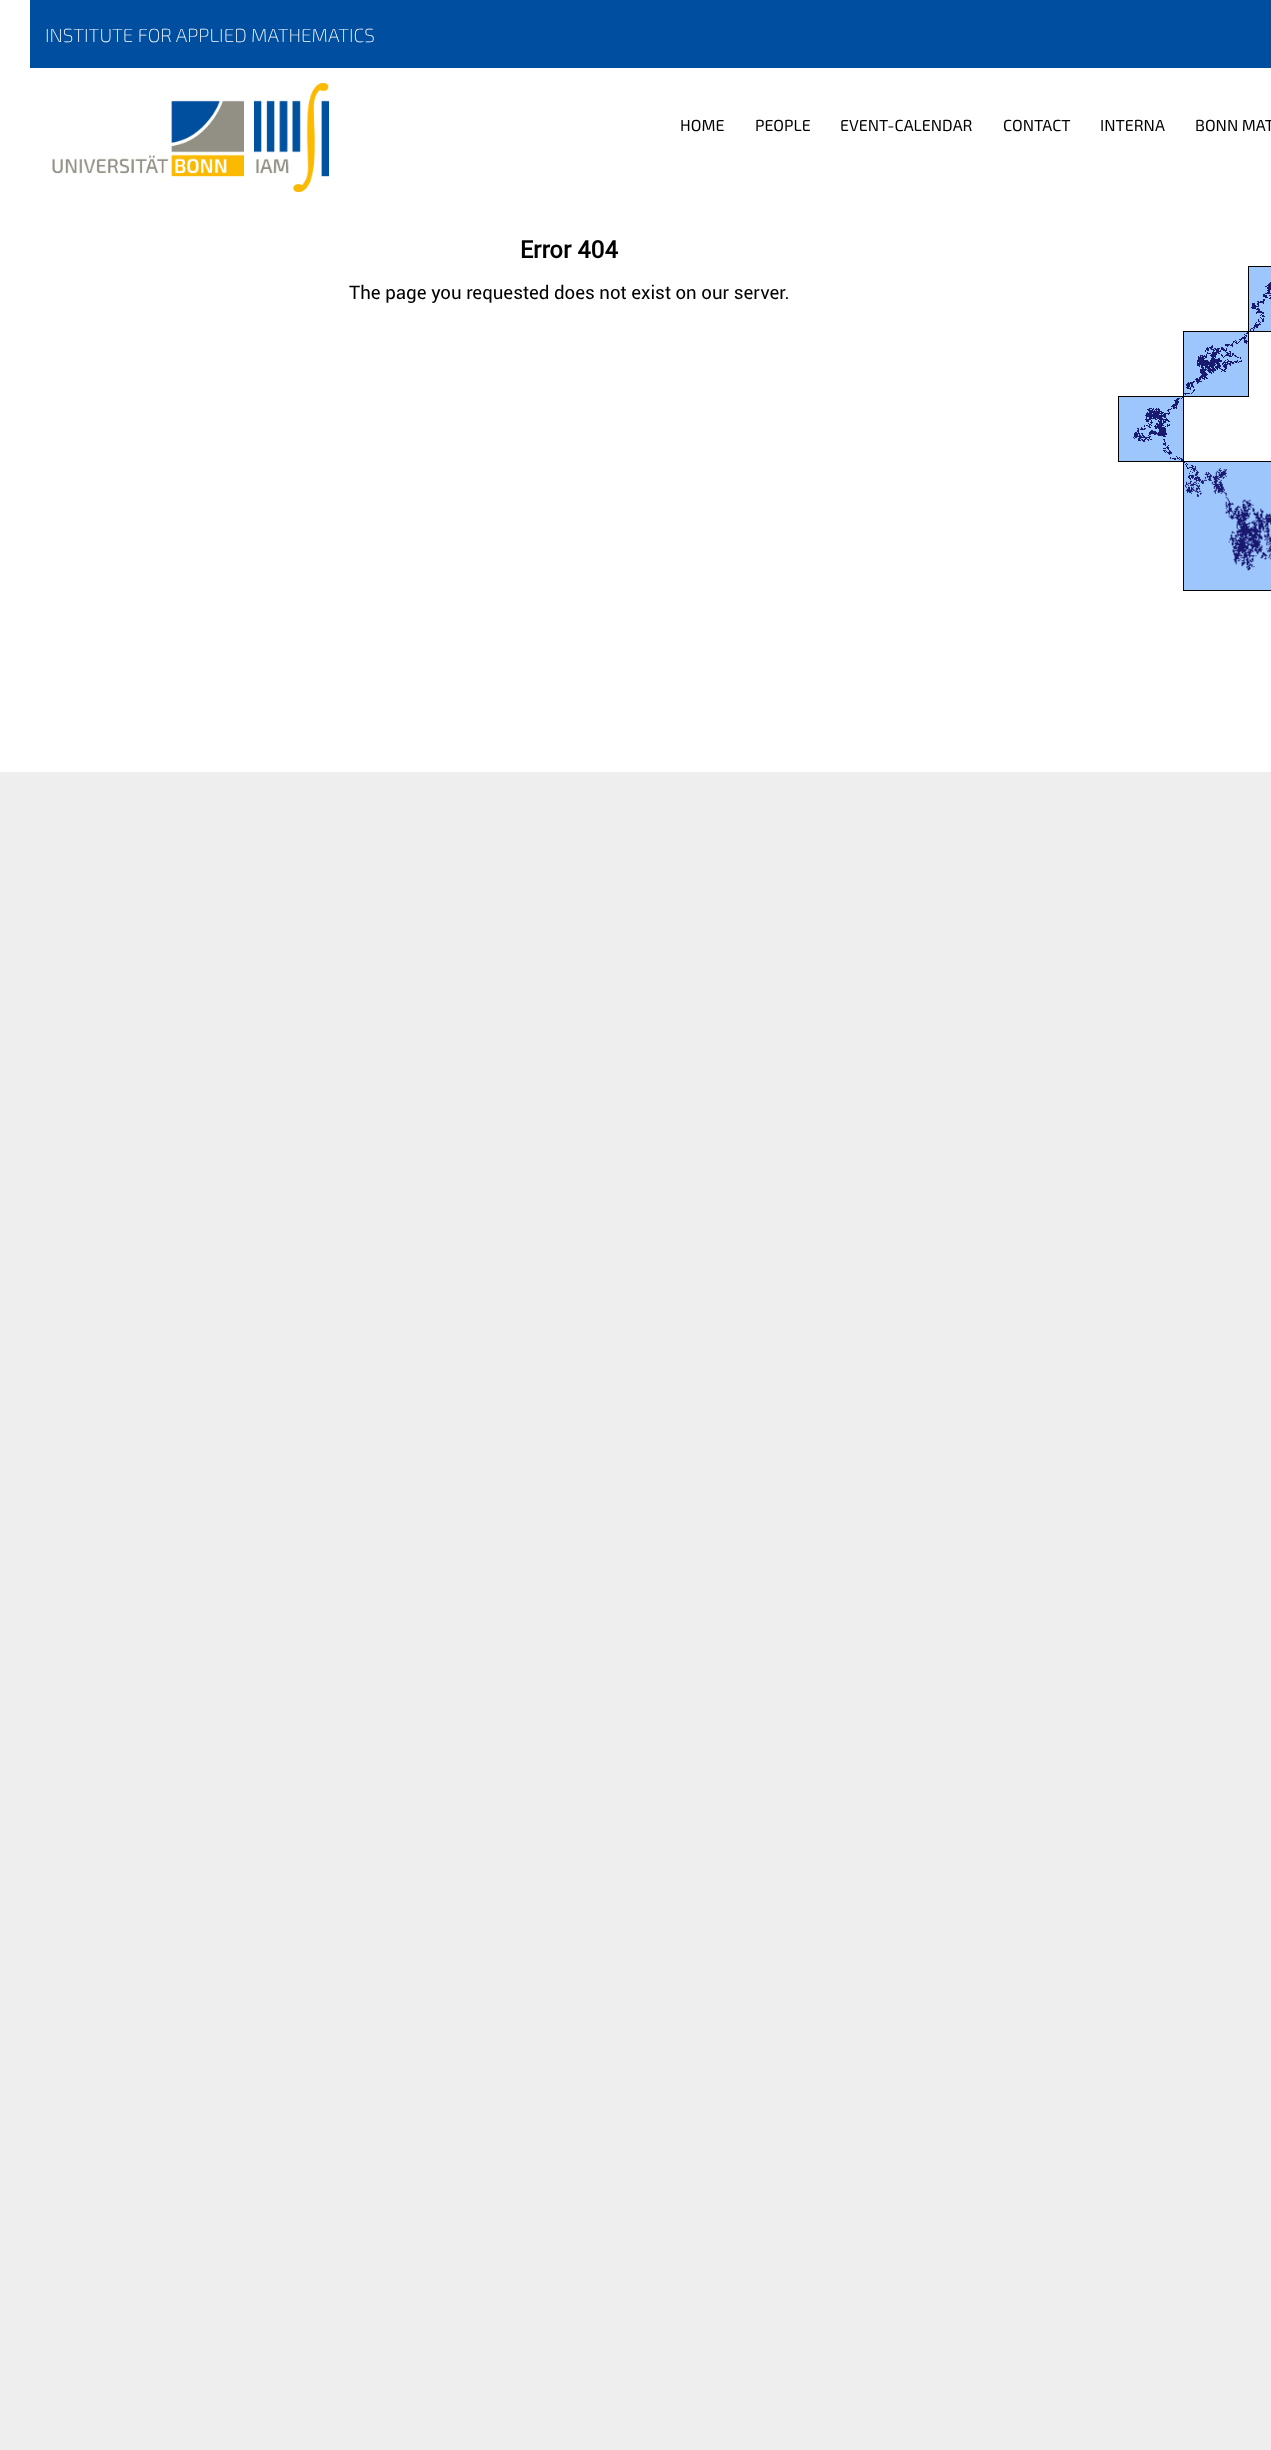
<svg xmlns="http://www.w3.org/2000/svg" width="1271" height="2450">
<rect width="100%" height="100%" fill="#eee"/>
<rect width="1271" height="772" fill="#fff"/>
<rect x="30" width="1241" height="68" fill="#004ea0"/>
<text x="45" y="42" style="font-family:'Exo 2';font-size:19px;font-weight:200;fill:#fff">INSTITUTE FOR APPLIED MATHEMATICS</text>
<image x="52" y="100" width="192" height="77" href="media/1.png"/>
<image x="254" y="83" width="75" height="109" href="media/2.png"/>
<text x="680" y="131" style="font-family:'Exo 2';font-size:16px;fill:#000">HOME</text>
<text x="755" y="131" style="font-family:'Exo 2';font-size:16px;fill:#000">PEOPLE</text>
<text x="840" y="131" style="font-family:'Exo 2';font-size:16px;fill:#000">EVENT-CALENDAR</text>
<text x="1003" y="131" style="font-family:'Exo 2';font-size:16px;fill:#000">CONTACT</text>
<text x="1100" y="131" style="font-family:'Exo 2';font-size:16px;fill:#000">INTERNA</text>
<text x="1195" y="131" style="font-family:'Exo 2';font-size:16px;fill:#000">BONN MAT</text>
<text x="520" y="258" style="font-family:Roboto;font-size:24px;font-weight:bold;fill:#000">Error 404</text>
<text x="349" y="299" style="font-family:Roboto;font-size:18.7px;fill:#000">The page you requested does not exist on our server.</text>
<rect x="1249" y="267" width="22" height="64" fill="#9dc6fd"/>
<image x="1250" y="282" width="21" height="49" href="media/3.png"/>
<rect x="1248.5" y="266.5" width="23" height="65" fill="none" stroke="#000"/>
<rect x="1184" y="332" width="64" height="64" fill="#9dc6fd"/>
<image x="1184" y="332" width="64" height="63" href="media/4.png"/>
<rect x="1183.5" y="331.5" width="65" height="65" fill="none" stroke="#000"/>
<rect x="1119" y="397" width="64" height="64" fill="#9dc6fd"/>
<image x="1133" y="397" width="50" height="64" href="media/5.png"/>
<rect x="1118.5" y="396.5" width="65" height="65" fill="none" stroke="#000"/>
<rect x="1184" y="462" width="87" height="128" fill="#9dc6fd"/>
<image x="1184" y="462" width="87" height="109" href="media/6.png"/>
<rect x="1183.5" y="461.5" width="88" height="129" fill="none" stroke="#000"/>
</svg>
